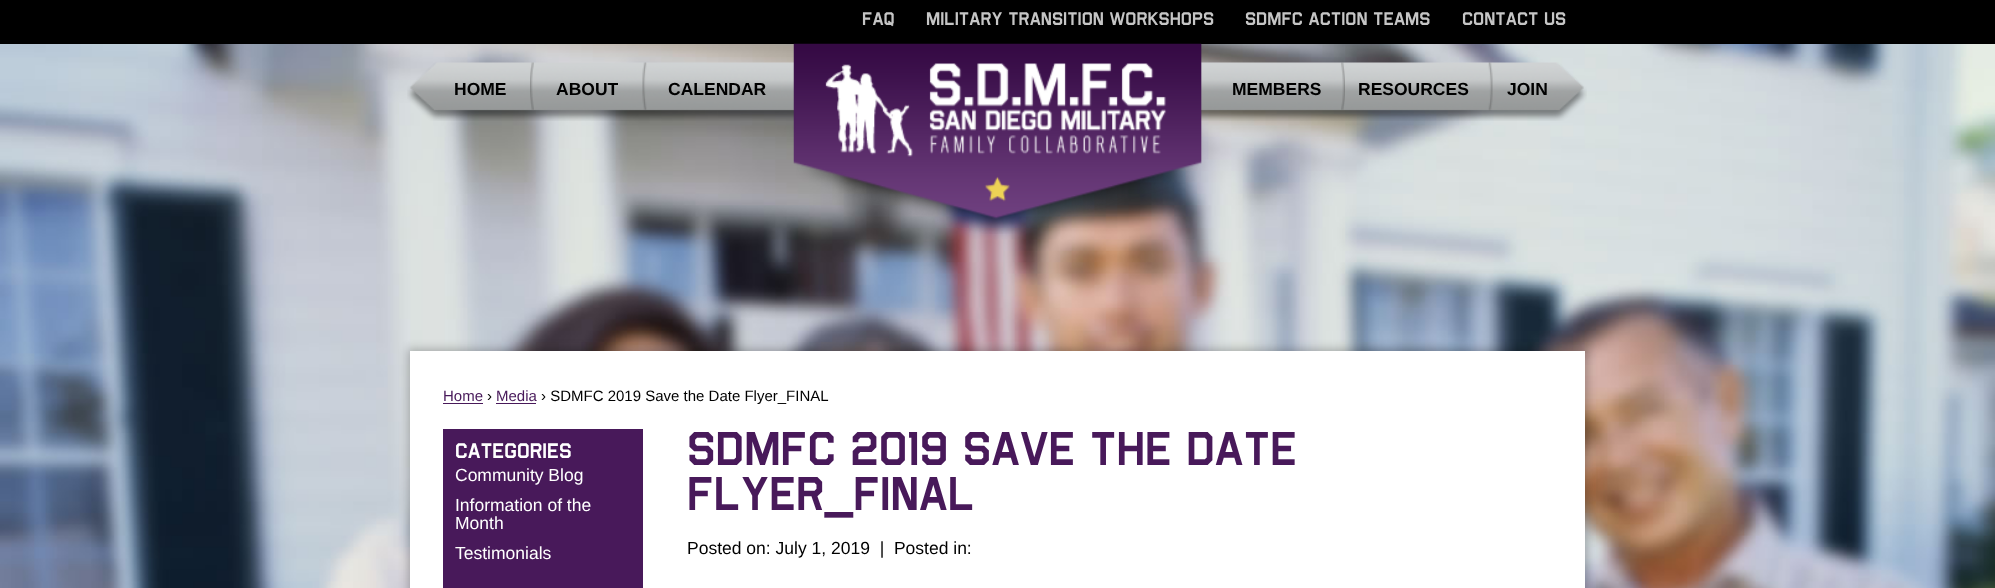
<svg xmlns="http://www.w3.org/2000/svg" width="1995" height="588">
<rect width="100%" height="100%" fill="#fff"/>
<image x="0" y="44" width="1995" height="544" href="media/1.png"/>
<rect width="1995" height="44" fill="#000"/>
<text x="862" y="25" style="font-family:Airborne;font-size:17.5px;fill:#c5c5c5">FAQ</text>
<text x="926" y="25" style="font-family:Airborne;font-size:17.5px;fill:#c5c5c5">MILITARY TRANSITION WORKSHOPS</text>
<text x="1245" y="25" style="font-family:Airborne;font-size:17.5px;fill:#c5c5c5">SDMFC ACTION TEAMS</text>
<text x="1462" y="25" style="font-family:Airborne;font-size:17.5px;fill:#c5c5c5">CONTACT US</text>
<image x="407" y="62" width="1180" height="59" href="media/2.png"/>
<text x="454" y="95" style="font-family:Liberation Sans;font-size:17.5px;font-weight:bold;fill:#000">HOME</text>
<image x="530" y="62" width="4" height="48" href="media/3.png"/>
<text x="556" y="95" style="font-family:Liberation Sans;font-size:17.5px;font-weight:bold;fill:#000">ABOUT</text>
<image x="642" y="62" width="5" height="48" href="media/4.png"/>
<text x="668" y="95" style="font-family:Liberation Sans;font-size:17.5px;font-weight:bold;fill:#000">CALENDAR</text>
<image x="793" y="43" width="409" height="191" href="media/5.png"/>
<text x="1232" y="95" style="font-family:Liberation Sans;font-size:17.5px;font-weight:bold;fill:#000">MEMBERS</text>
<image x="1341" y="62" width="4" height="48" href="media/6.png"/>
<text x="1358" y="95" style="font-family:Liberation Sans;font-size:17.5px;font-weight:bold;fill:#000">RESOURCES</text>
<image x="1488" y="62" width="5" height="49" href="media/7.png"/>
<text x="1507" y="95" style="font-family:Liberation Sans;font-size:17.5px;font-weight:bold;fill:#000">JOIN</text>
<rect x="408" y="349" width="1180" height="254" fill="#00000040" filter="blur(5px)"/>
<rect x="410" y="351" width="1175" height="237" fill="#fff"/>
<text x="443" y="401" style="font-family:Liberation Sans;font-size:15px;fill:#48195a">Home</text>
<rect x="443" y="403" width="40" height="1" fill="#48195a"/>
<text x="487" y="401" style="font-family:Liberation Sans;font-size:15px;fill:#000">›</text>
<text x="496" y="401" style="font-family:Liberation Sans;font-size:15px;fill:#48195a">Media</text>
<rect x="496" y="403" width="40" height="1" fill="#48195a"/>
<text x="541" y="401" style="font-family:Liberation Sans;font-size:15px;fill:#000">› SDMFC 2019 Save the Date Flyer_FINAL</text>
<rect x="443" y="429" width="200" height="159" fill="#48195a"/>
<text x="455" y="458" style="font-family:Airborne;font-size:20px;fill:#fff">CATEGORIES</text>
<text x="455" y="481" style="font-family:Liberation Sans;font-size:17.5px;fill:#fff">Community Blog</text>
<text x="455" y="511" style="font-family:Liberation Sans;font-size:17.5px;fill:#fff">Information of the</text>
<text x="455" y="529" style="font-family:Liberation Sans;font-size:17.5px;fill:#fff">Month</text>
<text x="455" y="559" style="font-family:Liberation Sans;font-size:17.5px;fill:#fff">Testimonials</text>
<text x="687" y="465" style="font-family:Airborne;font-size:45px;fill:#48195a">SDMFC 2019 SAVE THE DATE</text>
<text x="687" y="510" style="font-family:Airborne;font-size:45px;fill:#48195a">FLYER_FINAL</text>
<text x="687" y="554" style="font-family:Liberation Sans;font-size:17.5px;fill:#000" xml:space="preserve">Posted on: July 1, 2019  |  Posted in:</text>
</svg>
